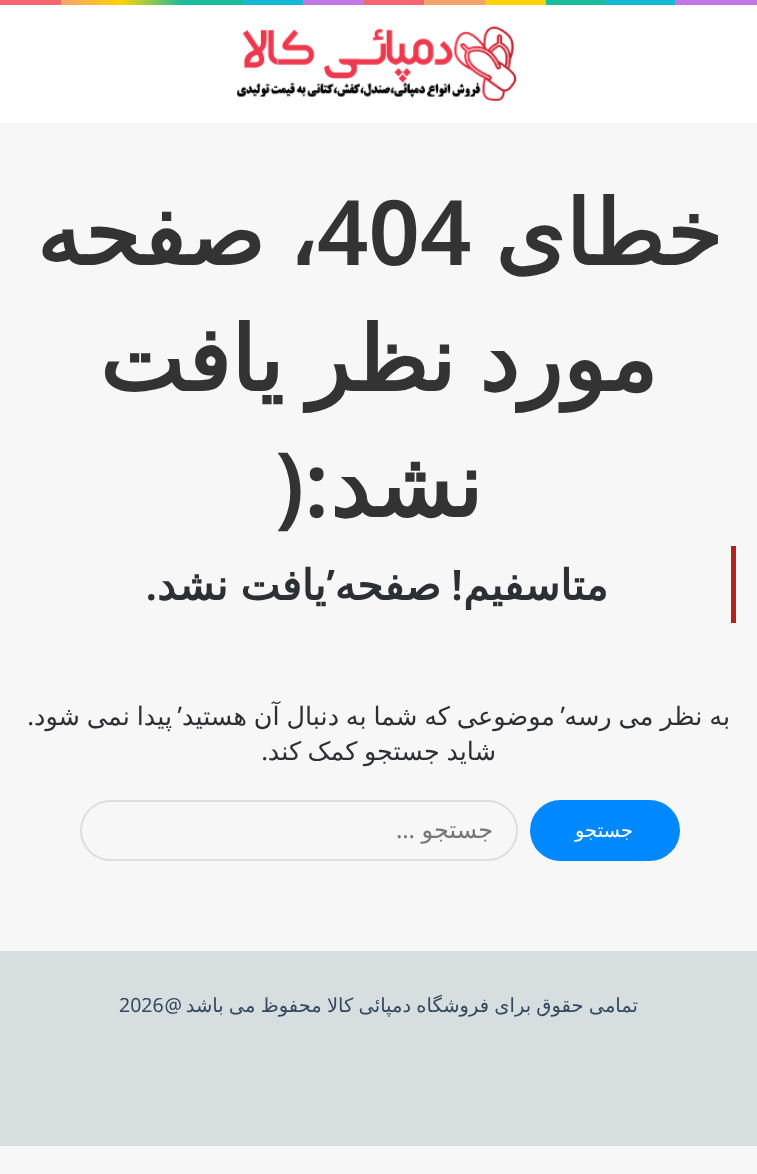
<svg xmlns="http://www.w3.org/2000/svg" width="757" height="1174">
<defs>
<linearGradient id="g1" gradientUnits="userSpaceOnUse" x1="0" y1="2.3" x2="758" y2="2.2"><stop offset="0" stop-color="#f76570"/><stop offset="0.08" stop-color="#f76570"/><stop offset="0.08" stop-color="#f3a46b"/><stop offset="0.16" stop-color="#ffd205"/><stop offset="0.24" stop-color="#1bbc9b"/><stop offset="0.32" stop-color="#1bbc9b"/><stop offset="0.32" stop-color="#14b9d5"/><stop offset="0.4" stop-color="#14b9d5"/><stop offset="0.4" stop-color="#c377e4"/><stop offset="0.48" stop-color="#c377e4"/><stop offset="0.48" stop-color="#f76570"/><stop offset="0.56" stop-color="#f76570"/><stop offset="0.56" stop-color="#f3a46b"/><stop offset="0.64" stop-color="#f3a46b"/><stop offset="0.64" stop-color="#ffd205"/><stop offset="0.72" stop-color="#ffd205"/><stop offset="0.72" stop-color="#1bbc9b"/><stop offset="0.8" stop-color="#1bbc9b"/><stop offset="0.8" stop-color="#14b9d5"/><stop offset="0.89" stop-color="#14b9d5"/><stop offset="0.89" stop-color="#c377e4"/><stop offset="1" stop-color="#c377e4"/></linearGradient>
</defs>
<rect width="100%" height="100%" fill="#f7f7f7"/>
<rect width="757" height="5" fill="url(#g1)"/>
<rect y="5" width="757" height="118" fill="#fff"/>
<image x="237" y="26" width="280" height="75" href="media/1.png"/>
<text x="722" y="265" style="font-family:DejaVu Sans;font-size:90px;font-weight:bold;direction:rtl;fill:#333">خطای</text>
<text x="317" y="265" style="font-family:Noto Sans;font-size:90px;font-weight:600;fill:#333">404</text>
<text x="317" y="265" word-spacing="-5" style="font-family:DejaVu Sans;font-size:90px;font-weight:bold;direction:rtl;fill:#333">، صفحه</text>
<text x="657" y="391" word-spacing="-5" style="font-family:DejaVu Sans;font-size:90px;font-weight:bold;direction:rtl;fill:#333">مورد نظر یافت</text>
<text x="482" y="517" style="font-family:DejaVu Sans;font-size:90px;font-weight:bold;direction:rtl;fill:#333">نشد</text>
<text x="329" y="517" style="font-family:Noto Sans;font-size:90px;font-weight:600;direction:rtl;fill:#333">:(</text>
<rect x="731" y="546" width="5" height="77" fill="#b22222"/>
<text x="608" y="600" style="font-family:DejaVu Sans;font-size:42px;font-weight:bold;direction:rtl;fill:#2c2f34">متاسفیم</text>
<text x="463" y="600" style="font-family:Noto Sans;font-size:42px;font-weight:600;direction:rtl;fill:#2c2f34">!</text>
<text x="441" y="600" style="font-family:DejaVu Sans;font-size:42px;font-weight:bold;direction:rtl;fill:#2c2f34">صفحه</text>
<text x="335" y="600" style="font-family:Noto Sans;font-size:42px;font-weight:600;direction:rtl;fill:#2c2f34">’</text>
<text x="326" y="600" word-spacing="-1" style="font-family:DejaVu Sans;font-size:42px;font-weight:bold;direction:rtl;fill:#2c2f34">یافت نشد</text>
<text x="157" y="600" style="font-family:Noto Sans;font-size:42px;font-weight:600;direction:rtl;fill:#2c2f34">.</text>
<text x="730" y="725" word-spacing="-1.25" style="font-family:DejaVu Sans;font-size:25.5px;direction:rtl;fill:#2c2f34">به نظر می رسه</text>
<text x="565" y="725" style="font-family:Noto Sans;font-size:25.5px;direction:rtl;fill:#2c2f34">’</text>
<text x="555" y="725" word-spacing="-1.25" style="font-family:DejaVu Sans;font-size:25.5px;direction:rtl;fill:#2c2f34">موضوعی که شما به دنبال آن هستید</text>
<text x="182" y="725" style="font-family:Noto Sans;font-size:25.5px;direction:rtl;fill:#2c2f34">’</text>
<text x="172" y="725" word-spacing="-1.25" style="font-family:DejaVu Sans;font-size:25.5px;direction:rtl;fill:#2c2f34">پیدا نمی شود</text>
<text x="34" y="725" style="font-family:Noto Sans;font-size:25.5px;direction:rtl;fill:#2c2f34">.</text>
<text x="496" y="760" word-spacing="-1.5" style="font-family:DejaVu Sans;font-size:25.5px;direction:rtl;fill:#2c2f34">شاید جستجو کمک کند</text>
<text x="268" y="760" style="font-family:Noto Sans;font-size:25.5px;direction:rtl;fill:#2c2f34">.</text>
<rect x="530" y="800" width="150" height="61" rx="30.5" fill="#08f"/>
<text x="633" y="837" style="font-family:DejaVu Sans;font-size:19.5px;direction:rtl;fill:#fff">جستجو</text>
<rect x="81" y="801" width="436" height="59" rx="29.5" fill="none" stroke="#ddd" stroke-width="2"/>
<text x="493" y="838" style="font-family:DejaVu Sans;font-size:24px;direction:rtl;fill:#757575">جستجو</text>
<text x="415" y="838" style="font-family:Noto Sans;font-size:24px;direction:rtl;fill:#757575">…</text>
<rect y="951" width="757" height="195" fill="#d7dee0"/>
<text x="638" y="1012" word-spacing="-1" style="font-family:DejaVu Sans;font-size:19.5px;direction:rtl;fill:#34495e">تمامی حقوق برای فروشگاه دمپائی کالا محفوظ می باشد</text>
<text x="182" y="1012" style="font-family:Noto Sans;font-size:19.5px;direction:rtl;fill:#34495e">@</text>
<text x="119" y="1012" style="font-family:Noto Sans;font-size:19.5px;fill:#34495e">2026</text>
</svg>
